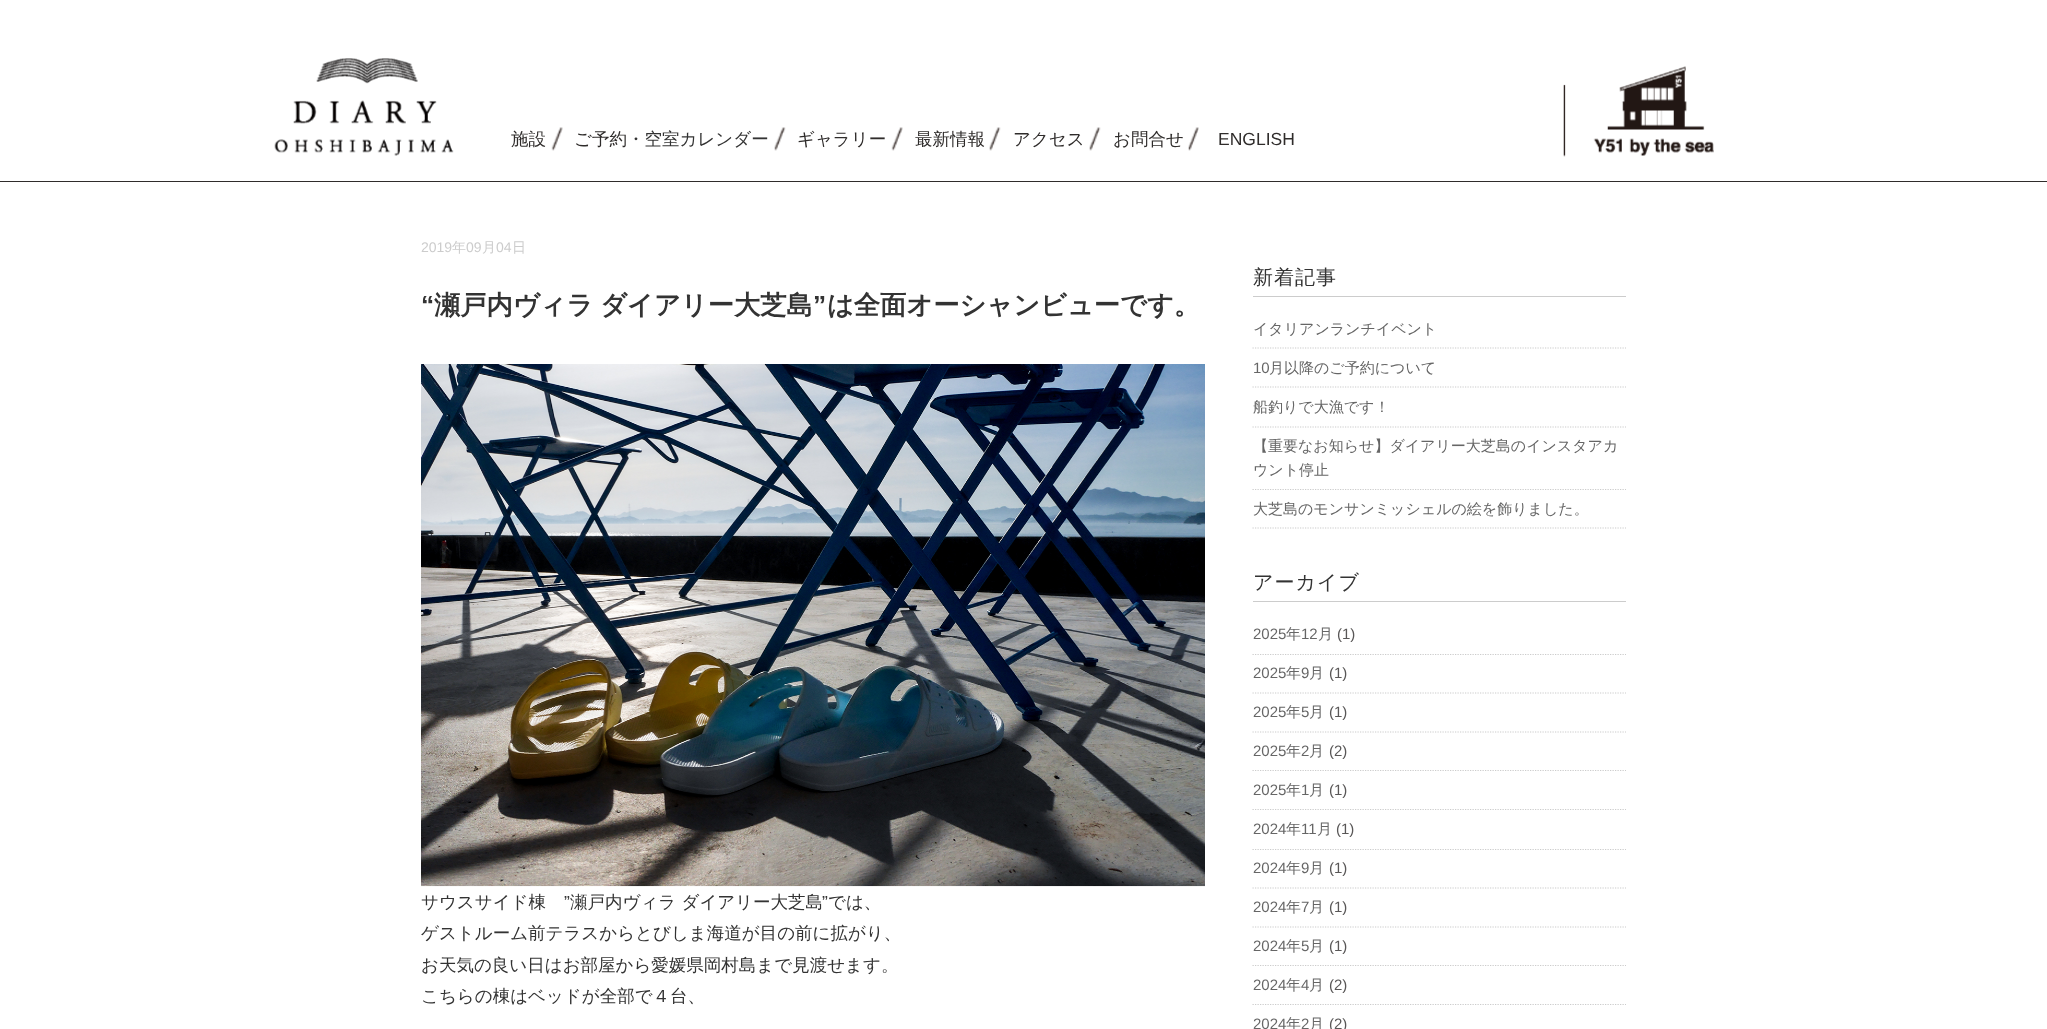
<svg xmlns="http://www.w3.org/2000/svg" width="2047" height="1029">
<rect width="100%" height="100%" fill="#fff"/>
<rect y="181" width="2047" height="1" fill="#2f2c2b"/>
<image x="274" y="58" width="180" height="98" href="media/1.png"/>
<image x="551" y="127" width="12" height="24" href="media/2.png"/>
<text x="511" y="145" style="font-family:WenQuanYi Zen Hei;font-size:17.5px;font-weight:500;fill:#2f2c2b">施設</text>
<image x="774" y="127" width="12" height="24" href="media/3.png"/>
<text x="574" y="145" style="font-family:WenQuanYi Zen Hei;font-size:17.5px;font-weight:500;fill:#2f2c2b">ご予約</text>
<text x="627" y="145" style="font-family:WenQuanYi Zen Hei;font-size:17.5px;font-weight:500;fill:#333">・空室カレンダー</text>
<image x="891" y="127" width="12" height="24" href="media/4.png"/>
<text x="797" y="145" style="font-family:WenQuanYi Zen Hei;font-size:17.5px;font-weight:500;fill:#2f2c2b">ギャラリー</text>
<image x="989" y="127" width="12" height="24" href="media/5.png"/>
<text x="915" y="145" style="font-family:WenQuanYi Zen Hei;font-size:17.5px;font-weight:500;fill:#2f2c2b">最新情報</text>
<image x="1089" y="127" width="12" height="24" href="media/5.png"/>
<text x="1013" y="145" style="font-family:WenQuanYi Zen Hei;font-size:17.5px;font-weight:500;fill:#2f2c2b">アクセス</text>
<image x="1188" y="127" width="11" height="24" href="media/6.png"/>
<text x="1113" y="145" style="font-family:WenQuanYi Zen Hei;font-size:17.5px;font-weight:500;fill:#2f2c2b">お問合せ</text>
<text x="1218" y="145" style="font-family:Liberation Sans;font-size:17.5px;fill:#2f2c2b">ENGLISH</text>
<image x="1563" y="84" width="3" height="73" href="media/7.png"/>
<image x="1593" y="66" width="121" height="90" href="media/8.png"/>
<text x="421" y="252" style="font-family:Liberation Sans;font-size:14px;fill:#ccc">2019</text>
<text x="452" y="252" style="font-family:WenQuanYi Zen Hei;font-size:14px;font-weight:500;fill:#ccc">年</text>
<text x="466" y="252" style="font-family:Liberation Sans;font-size:14px;fill:#ccc">09</text>
<text x="482" y="252" style="font-family:WenQuanYi Zen Hei;font-size:14px;font-weight:500;fill:#ccc">月</text>
<text x="496" y="252" style="font-family:Liberation Sans;font-size:14px;fill:#ccc">04</text>
<text x="512" y="252" style="font-family:WenQuanYi Zen Hei;font-size:14px;font-weight:500;fill:#ccc">日</text>
<text x="421" y="314" style="font-family:Liberation Sans;font-size:26.25px;font-weight:bold;fill:#333">“</text>
<text x="434" y="314" word-spacing="-1" style="font-family:WenQuanYi Zen Hei;font-size:26.25px;font-weight:bold;fill:#333">瀬戸内ヴィラ ダイアリー大芝島</text>
<text x="813" y="314" style="font-family:Liberation Sans;font-size:26.25px;font-weight:bold;fill:#333">”</text>
<text x="827" y="314" style="font-family:WenQuanYi Zen Hei;font-size:26.25px;font-weight:bold;fill:#333">は全面オーシャンビューです。</text>
<image x="421" y="364" width="784" height="523" href="media/9.png"/>
<text x="421" y="908" style="font-family:WenQuanYi Zen Hei;font-size:17.5px;font-weight:500;fill:#333">サウスサイド棟</text>
<text x="564" y="908" style="font-family:Liberation Sans;font-size:17.5px;fill:#333">”</text>
<text x="570" y="908" style="font-family:WenQuanYi Zen Hei;font-size:17.5px;font-weight:500;fill:#333">瀬戸内ヴィラ ダイアリー大芝島</text>
<text x="822" y="908" style="font-family:Liberation Sans;font-size:17.5px;fill:#333">”</text>
<text x="828" y="908" style="font-family:WenQuanYi Zen Hei;font-size:17.5px;font-weight:500;fill:#333">では、</text>
<text x="421" y="939" style="font-family:WenQuanYi Zen Hei;font-size:17.5px;font-weight:500;fill:#333">ゲストルーム前テラスからとびしま海道が目の前に拡がり、</text>
<text x="421" y="971" style="font-family:WenQuanYi Zen Hei;font-size:17.5px;font-weight:500;fill:#333">お天気の良い日はお部屋から愛媛県岡村島まで見渡せます。</text>
<text x="421" y="1002" style="font-family:WenQuanYi Zen Hei;font-size:17.5px;font-weight:500;fill:#333">こちらの棟はベッドが全部で４台、</text>
<rect x="1253" y="296" width="373" height="1" fill="#ccc"/>
<text x="1253" y="284" style="font-family:WenQuanYi Zen Hei;font-size:20px;font-weight:500;letter-spacing:1px;fill:#333">新着記事</text>
<path d="M1252.5 348h373.5" fill="none" stroke="#ccc" stroke-width="1.2" stroke-dasharray="1.25 1.25"/>
<text x="1253" y="334" style="font-family:WenQuanYi Zen Hei;font-size:15px;font-weight:500;fill:#666">イタリアンランチイベント</text>
<path d="M1252.5 387h373.5" fill="none" stroke="#ccc" stroke-width="1.2" stroke-dasharray="1.25 1.25"/>
<text x="1253" y="373" style="font-family:Liberation Sans;font-size:15px;fill:#666">10</text>
<text x="1269" y="373" style="font-family:WenQuanYi Zen Hei;font-size:15px;font-weight:500;fill:#666">月以降のご予約について</text>
<path d="M1252.5 427h373.5" fill="none" stroke="#ccc" stroke-width="1.2" stroke-dasharray="1.25 1.25"/>
<text x="1253" y="412" style="font-family:WenQuanYi Zen Hei;font-size:15px;font-weight:500;fill:#666">船釣りで大漁です！</text>
<path d="M1252.5 489.5h373.5" fill="none" stroke="#ccc" stroke-width="1.2" stroke-dasharray="1.25 1.25"/>
<text x="1253" y="451" style="font-family:WenQuanYi Zen Hei;font-size:15px;font-weight:500;fill:#666">【重要なお知らせ】ダイアリー大芝島のインスタアカ</text>
<text x="1253" y="475" style="font-family:WenQuanYi Zen Hei;font-size:15px;font-weight:500;fill:#666">ウント停止</text>
<path d="M1252.5 528h373.5" fill="none" stroke="#ccc" stroke-width="1.2" stroke-dasharray="1.25 1.25"/>
<text x="1253" y="514" style="font-family:WenQuanYi Zen Hei;font-size:15px;font-weight:500;fill:#666">大芝島のモンサンミッシェルの絵を飾りました。</text>
<rect x="1253" y="601" width="373" height="1" fill="#ccc"/>
<text x="1253" y="589" style="font-family:WenQuanYi Zen Hei;font-size:20px;font-weight:500;letter-spacing:1px;fill:#333">アーカイブ</text>
<path d="M1252.5 654.5h373.5" fill="none" stroke="#ccc" stroke-width="1.2" stroke-dasharray="1.25 1.25"/>
<text x="1253" y="639" style="font-family:Liberation Sans;font-size:15px;fill:#666">2025</text>
<text x="1286" y="639" style="font-family:WenQuanYi Zen Hei;font-size:15px;font-weight:500;fill:#666">年</text>
<text x="1301" y="639" style="font-family:Liberation Sans;font-size:15px;fill:#666">12</text>
<text x="1318" y="639" style="font-family:WenQuanYi Zen Hei;font-size:15px;font-weight:500;fill:#666">月</text>
<text x="1337" y="639" style="font-family:Liberation Sans;font-size:15px;fill:#595757">(1)</text>
<path d="M1252.5 693h373.5" fill="none" stroke="#ccc" stroke-width="1.2" stroke-dasharray="1.25 1.25"/>
<text x="1253" y="678" style="font-family:Liberation Sans;font-size:15px;fill:#666">2025</text>
<text x="1286" y="678" style="font-family:WenQuanYi Zen Hei;font-size:15px;font-weight:500;fill:#666">年</text>
<text x="1301" y="678" style="font-family:Liberation Sans;font-size:15px;fill:#666">9</text>
<text x="1309" y="678" style="font-family:WenQuanYi Zen Hei;font-size:15px;font-weight:500;fill:#666">月</text>
<text x="1329" y="678" style="font-family:Liberation Sans;font-size:15px;fill:#595757">(1)</text>
<path d="M1252.5 732h373.5" fill="none" stroke="#ccc" stroke-width="1.2" stroke-dasharray="1.25 1.25"/>
<text x="1253" y="717" style="font-family:Liberation Sans;font-size:15px;fill:#666">2025</text>
<text x="1286" y="717" style="font-family:WenQuanYi Zen Hei;font-size:15px;font-weight:500;fill:#666">年</text>
<text x="1301" y="717" style="font-family:Liberation Sans;font-size:15px;fill:#666">5</text>
<text x="1309" y="717" style="font-family:WenQuanYi Zen Hei;font-size:15px;font-weight:500;fill:#666">月</text>
<text x="1329" y="717" style="font-family:Liberation Sans;font-size:15px;fill:#595757">(1)</text>
<path d="M1252.5 770.5h373.5" fill="none" stroke="#ccc" stroke-width="1.2" stroke-dasharray="1.25 1.25"/>
<text x="1253" y="756" style="font-family:Liberation Sans;font-size:15px;fill:#666">2025</text>
<text x="1286" y="756" style="font-family:WenQuanYi Zen Hei;font-size:15px;font-weight:500;fill:#666">年</text>
<text x="1301" y="756" style="font-family:Liberation Sans;font-size:15px;fill:#666">2</text>
<text x="1309" y="756" style="font-family:WenQuanYi Zen Hei;font-size:15px;font-weight:500;fill:#666">月</text>
<text x="1329" y="756" style="font-family:Liberation Sans;font-size:15px;fill:#595757">(2)</text>
<path d="M1252.5 809.5h373.5" fill="none" stroke="#ccc" stroke-width="1.2" stroke-dasharray="1.25 1.25"/>
<text x="1253" y="795" style="font-family:Liberation Sans;font-size:15px;fill:#666">2025</text>
<text x="1286" y="795" style="font-family:WenQuanYi Zen Hei;font-size:15px;font-weight:500;fill:#666">年</text>
<text x="1301" y="795" style="font-family:Liberation Sans;font-size:15px;fill:#666">1</text>
<text x="1309" y="795" style="font-family:WenQuanYi Zen Hei;font-size:15px;font-weight:500;fill:#666">月</text>
<text x="1329" y="795" style="font-family:Liberation Sans;font-size:15px;fill:#595757">(1)</text>
<path d="M1252.5 849.5h373.5" fill="none" stroke="#ccc" stroke-width="1.2" stroke-dasharray="1.25 1.25"/>
<text x="1253" y="834" style="font-family:Liberation Sans;font-size:15px;fill:#666">2024</text>
<text x="1286" y="834" style="font-family:WenQuanYi Zen Hei;font-size:15px;font-weight:500;fill:#666">年</text>
<text x="1301" y="834" style="font-family:Liberation Sans;font-size:15px;fill:#666">11</text>
<text x="1317" y="834" style="font-family:WenQuanYi Zen Hei;font-size:15px;font-weight:500;fill:#666">月</text>
<text x="1336" y="834" style="font-family:Liberation Sans;font-size:15px;fill:#595757">(1)</text>
<path d="M1252.5 888h373.5" fill="none" stroke="#ccc" stroke-width="1.2" stroke-dasharray="1.25 1.25"/>
<text x="1253" y="873" style="font-family:Liberation Sans;font-size:15px;fill:#666">2024</text>
<text x="1286" y="873" style="font-family:WenQuanYi Zen Hei;font-size:15px;font-weight:500;fill:#666">年</text>
<text x="1301" y="873" style="font-family:Liberation Sans;font-size:15px;fill:#666">9</text>
<text x="1309" y="873" style="font-family:WenQuanYi Zen Hei;font-size:15px;font-weight:500;fill:#666">月</text>
<text x="1329" y="873" style="font-family:Liberation Sans;font-size:15px;fill:#595757">(1)</text>
<path d="M1252.5 927h373.5" fill="none" stroke="#ccc" stroke-width="1.2" stroke-dasharray="1.25 1.25"/>
<text x="1253" y="912" style="font-family:Liberation Sans;font-size:15px;fill:#666">2024</text>
<text x="1286" y="912" style="font-family:WenQuanYi Zen Hei;font-size:15px;font-weight:500;fill:#666">年</text>
<text x="1301" y="912" style="font-family:Liberation Sans;font-size:15px;fill:#666">7</text>
<text x="1309" y="912" style="font-family:WenQuanYi Zen Hei;font-size:15px;font-weight:500;fill:#666">月</text>
<text x="1329" y="912" style="font-family:Liberation Sans;font-size:15px;fill:#595757">(1)</text>
<path d="M1252.5 965.5h373.5" fill="none" stroke="#ccc" stroke-width="1.2" stroke-dasharray="1.25 1.25"/>
<text x="1253" y="951" style="font-family:Liberation Sans;font-size:15px;fill:#666">2024</text>
<text x="1286" y="951" style="font-family:WenQuanYi Zen Hei;font-size:15px;font-weight:500;fill:#666">年</text>
<text x="1301" y="951" style="font-family:Liberation Sans;font-size:15px;fill:#666">5</text>
<text x="1309" y="951" style="font-family:WenQuanYi Zen Hei;font-size:15px;font-weight:500;fill:#666">月</text>
<text x="1329" y="951" style="font-family:Liberation Sans;font-size:15px;fill:#595757">(1)</text>
<path d="M1252.5 1004.5h373.5" fill="none" stroke="#ccc" stroke-width="1.2" stroke-dasharray="1.25 1.25"/>
<text x="1253" y="990" style="font-family:Liberation Sans;font-size:15px;fill:#666">2024</text>
<text x="1286" y="990" style="font-family:WenQuanYi Zen Hei;font-size:15px;font-weight:500;fill:#666">年</text>
<text x="1301" y="990" style="font-family:Liberation Sans;font-size:15px;fill:#666">4</text>
<text x="1309" y="990" style="font-family:WenQuanYi Zen Hei;font-size:15px;font-weight:500;fill:#666">月</text>
<text x="1329" y="990" style="font-family:Liberation Sans;font-size:15px;fill:#595757">(2)</text>
<text x="1253" y="1029" style="font-family:Liberation Sans;font-size:15px;fill:#666">2024</text>
<text x="1286" y="1029" style="font-family:WenQuanYi Zen Hei;font-size:15px;font-weight:500;fill:#666">年</text>
<text x="1301" y="1029" style="font-family:Liberation Sans;font-size:15px;fill:#666">2</text>
<text x="1309" y="1029" style="font-family:WenQuanYi Zen Hei;font-size:15px;font-weight:500;fill:#666">月</text>
<text x="1329" y="1029" style="font-family:Liberation Sans;font-size:15px;fill:#595757">(2)</text>
</svg>
